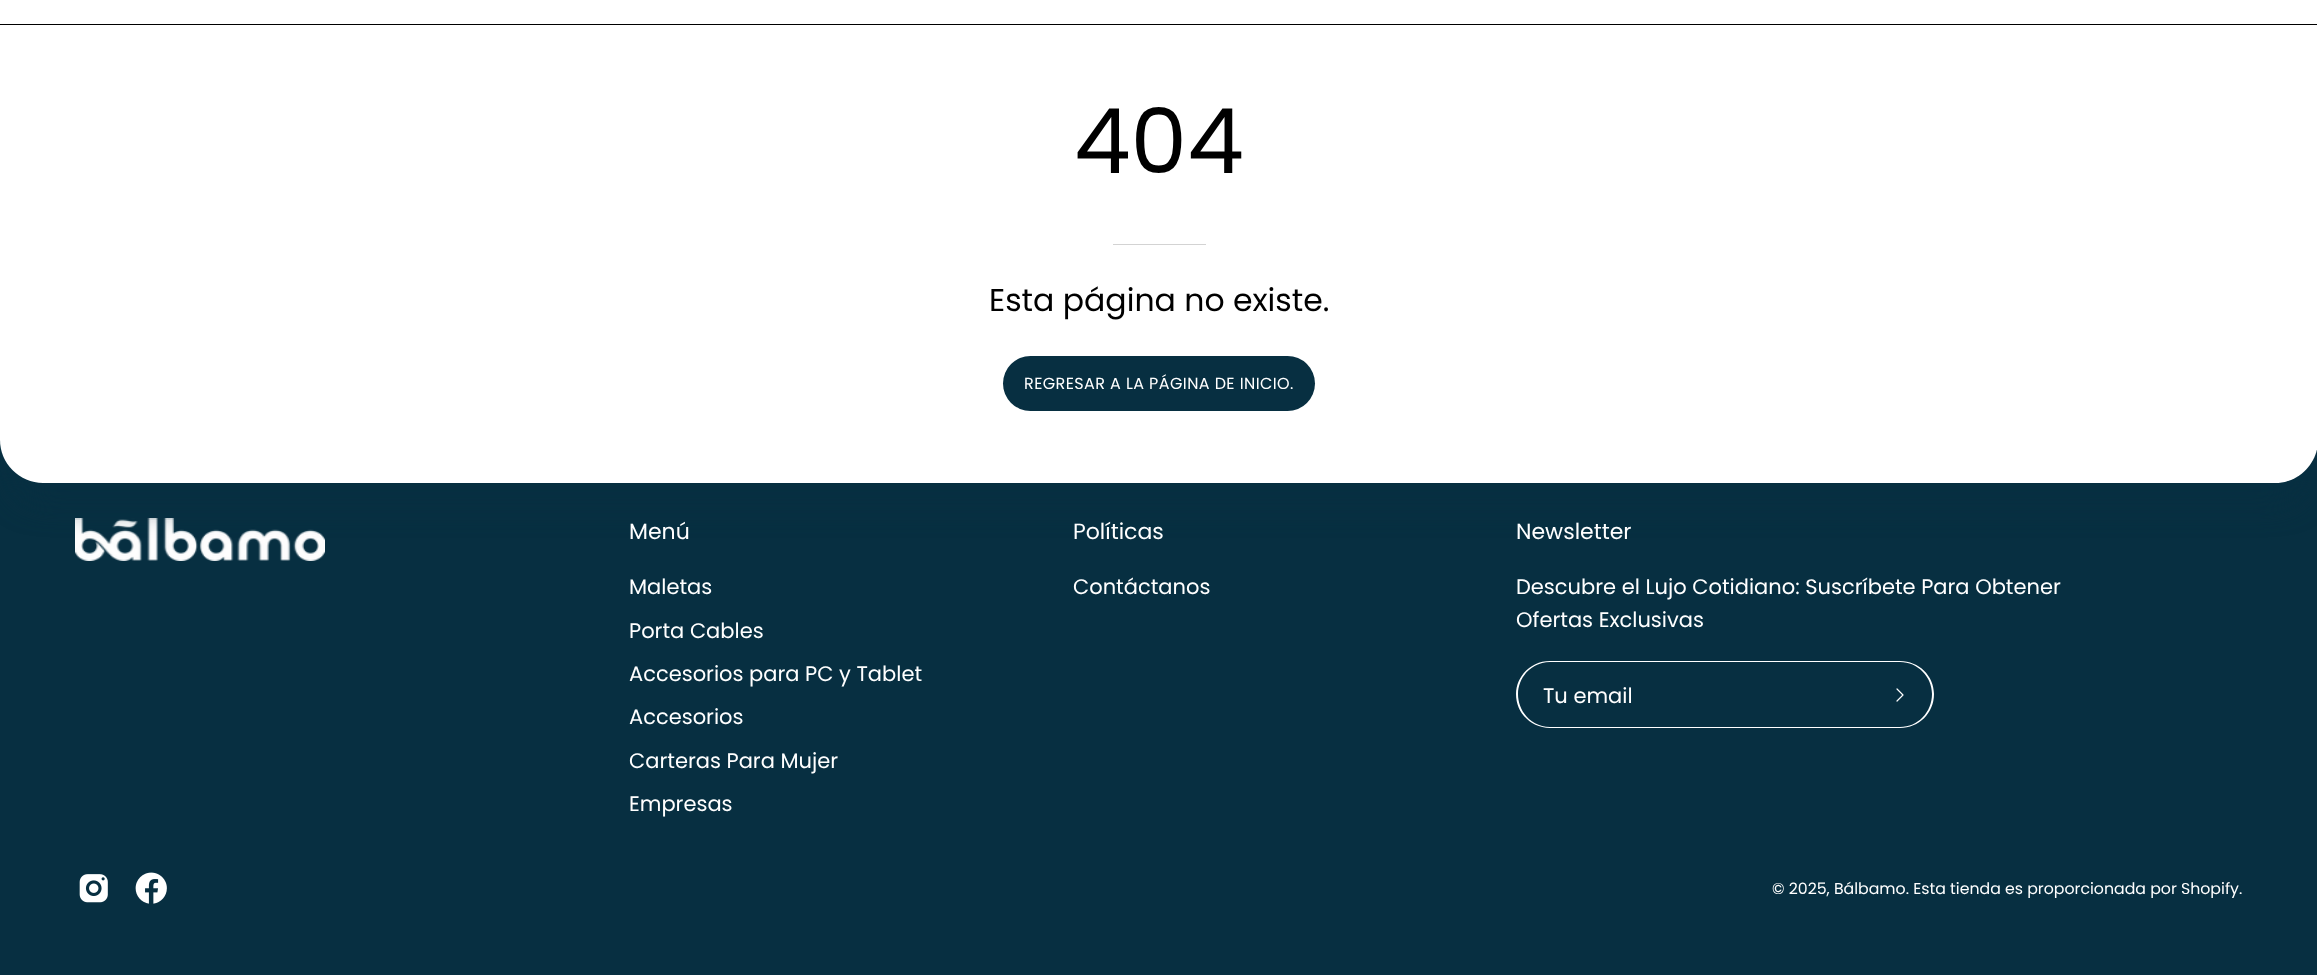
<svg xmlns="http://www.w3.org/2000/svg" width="2317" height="975">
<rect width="100%" height="100%" fill="#fff"/>
<rect y="440" width="2317" height="535" fill="#072f41"/>
<image x="75" y="518" width="250" height="43" href="media/1.png"/>
<rect x="13" y="68" width="2292" height="433" rx="30" fill="#072f41" filter="blur(15.5px)"/>
<path d="M0 24h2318v416c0 23.5-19.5 43-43 43h-2232c-23.5 0-43-19.5-43-43z" fill="#fff"/>
<path d="M0 24v1h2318v-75v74z" fill="#000"/>
<text x="1074" y="173" style="font-family:Poppins;font-size:90px;fill:#000">404</text>
<rect x="1113" y="244" width="93" height="1" fill="#d3d3d3"/>
<text x="989" y="311" style="font-family:Poppins;font-size:31.5px;fill:#000">Esta página no existe.</text>
<rect x="1003" y="356" width="312" height="55" rx="27.5" fill="#072f41"/>
<text x="1024" y="389" style="font-family:Poppins;font-size:16px;letter-spacing:0.4px;fill:#fff">REGRESAR A LA PÁGINA DE INICIO.</text>
<text x="629" y="539" style="font-family:Poppins;font-size:22px;fill:#fff">Menú</text>
<text x="629" y="594" style="font-family:Poppins;font-size:21px;fill:#fff">Maletas</text>
<text x="629" y="638" style="font-family:Poppins;font-size:21px;fill:#fff">Porta Cables</text>
<text x="629" y="681" style="font-family:Poppins;font-size:21px;fill:#fff">Accesorios para PC y Tablet</text>
<text x="629" y="724" style="font-family:Poppins;font-size:21px;fill:#fff">Accesorios</text>
<text x="629" y="768" style="font-family:Poppins;font-size:21px;fill:#fff">Carteras Para Mujer</text>
<text x="629" y="811" style="font-family:Poppins;font-size:21px;fill:#fff">Empresas</text>
<text x="1073" y="539" style="font-family:Poppins;font-size:22px;fill:#fff">Políticas</text>
<text x="1073" y="594" style="font-family:Poppins;font-size:21px;fill:#fff">Contáctanos</text>
<text x="1516" y="539" style="font-family:Poppins;font-size:22px;fill:#fff">Newsletter</text>
<text x="1516" y="594" style="font-family:Poppins;font-size:21px;fill:#fff">Descubre el Lujo Cotidiano: Suscríbete Para Obtener</text>
<text x="1516" y="627" style="font-family:Poppins;font-size:21px;fill:#fff">Ofertas Exclusivas</text>
<path d="M1550 661h316v67h-316c-19 0-34-15-34-34c0-18 15-33 34-33zm0 1h316v65h-316c-18 0-32-15-32-33c0-17 14-32 32-32z" fill="#fff" fill-rule="evenodd"/>
<text x="1543" y="703" style="font-family:Poppins;font-size:21px;fill:#fff">Tu email</text>
<path d="M1866 661h34c19 0 34 15 34 33c0 19-15 34-34 34h-34zm0 1h34c18 0 32 15 32 32c0 18-14 33-32 33h-34z" fill="#fff" fill-rule="evenodd"/>
<path d="M1897 689l6 6l-6 6" fill="none" stroke="#fff" stroke-width="1.2" stroke-linecap="round" stroke-linejoin="round"/>
<image x="79" y="874" width="29" height="29" href="media/2.png"/>
<image x="135" y="872" width="32" height="32" href="media/3.png"/>
<text x="1772" y="894" style="font-family:Poppins;font-size:15.75px;fill:#fff">© 2025, Bálbamo. Esta tienda es proporcionada por Shopify.</text>
</svg>
